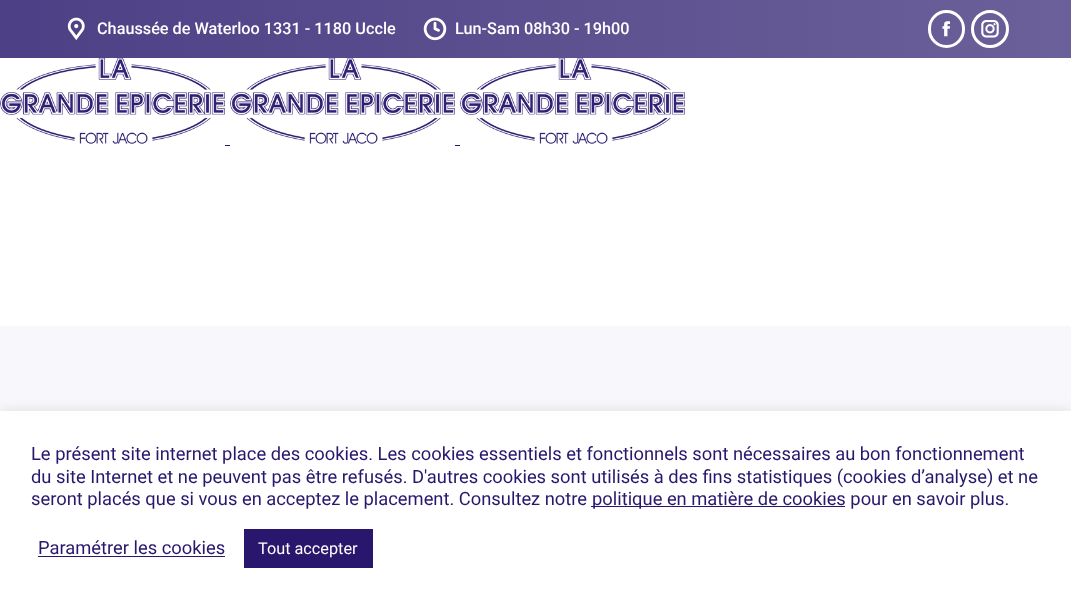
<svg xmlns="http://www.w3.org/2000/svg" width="1071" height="605">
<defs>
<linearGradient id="g1" gradientUnits="userSpaceOnUse" x1="-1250" y1="29" x2="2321" y2="29"><stop offset="0" stop-color="#2a196f"/><stop offset="1" stop-color="#8e87b0"/></linearGradient>
</defs>
<rect width="100%" height="100%" fill="#fff"/>
<rect width="1071" height="58" fill="url(#g1)"/>
<image x="67" y="17" width="18" height="23" href="media/1.png"/>
<text x="97" y="34" style="font-family:Roboto;font-size:16.25px;font-weight:500;fill:#fff">Chaussée de Waterloo 1331 - 1180 Uccle</text>
<image x="423" y="17" width="24" height="24" href="media/2.png"/>
<text x="455" y="34" style="font-family:Roboto;font-size:16.25px;font-weight:500;fill:#fff">Lun-Sam 08h30 - 19h00</text>
<rect x="929.5" y="11.5" width="34" height="35" rx="17" fill="none" stroke="#fff" stroke-width="3"/>
<image x="942" y="21" width="8" height="16" href="media/3.png"/>
<circle cx="990" cy="29" r="17.5" fill="none" stroke="#fff" stroke-width="3"/>
<image x="981" y="20" width="18" height="18" href="media/4.png"/>
<image x="0" y="58" width="225" height="86" href="media/5.png"/>
<image x="230" y="58" width="225" height="86" href="media/6.png"/>
<image x="460" y="58" width="225" height="86" href="media/7.png"/>
<rect x="225" y="145" width="5" height="1" fill="#29176d"/>
<rect x="455" y="145" width="5" height="1" fill="#29176d"/>
<rect y="326" width="1071" height="85" fill="#f8f7fb"/>
<rect y="410" width="1071" height="194" fill="#acabab4d" filter="blur(6px)"/>
<rect y="411" width="1071" height="194" fill="#fff"/>
<text x="31" y="460" style="font-family:Roboto;font-size:18.33px;fill:#29176d">Le présent site internet place des cookies. Les cookies essentiels et fonctionnels sont nécessaires au bon fonctionnement</text>
<text x="31" y="483" style="font-family:Roboto;font-size:18.33px;fill:#29176d">du site Internet et ne peuvent pas être refusés. D′autres cookies sont utilisés à des fins statistiques (cookies d’analyse) et ne</text>
<text x="31" y="505" style="font-family:Roboto;font-size:18.33px;fill:#29176d">seront placés que si vous en acceptez le placement. Consultez notre</text>
<rect x="591" y="506" width="254" height="1" fill="#29176d"/>
<text x="592" y="505" style="font-family:Roboto;font-size:18.33px;fill:#29176d">politique en matière de cookies pour en savoir plus.</text>
<text x="38" y="554" style="font-family:Roboto;font-size:18.33px;fill:#29176d">Paramétrer les cookies</text>
<rect x="38" y="556" width="187" height="1" fill="#29176d"/>
<rect x="244" y="529" width="129" height="39" fill="#29176d"/>
<text x="258" y="554" style="font-family:Roboto;font-size:16.25px;fill:#fff">Tout accepter</text>
</svg>
